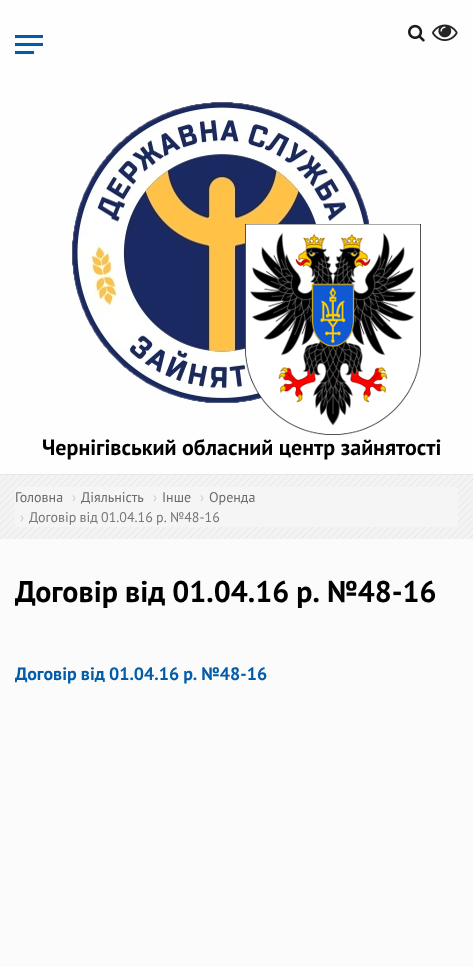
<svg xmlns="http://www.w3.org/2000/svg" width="473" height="967">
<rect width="100%" height="100%" fill="#fbfbfb"/>
<rect width="473" height="474" fill="#fefefe"/>
<rect y="474" width="473" height="1" fill="#e7e7e7"/>
<image x="408" y="24" width="17" height="18" href="media/1.png"/>
<image x="432" y="24" width="26" height="17" href="media/2.png"/>
<image x="15" y="35" width="28" height="20" href="media/3.png"/>
<image x="72" y="102" width="349" height="333" href="media/4.png"/>
<text x="42" y="455" style="font-family:PT Sans;font-size:22px;font-weight:bold;fill:#000">Чернігівський обласний центр зайнятості</text>
<image x="0" y="475" width="473" height="64" href="media/5.png"/>
<rect x="15" y="487" width="443" height="40" rx="4" fill="#f5f5f5"/>
<text x="15" y="502" style="font-family:PT Sans;font-size:14px;fill:#6b6b6b">Головна</text>
<text x="72" y="502" style="font-family:PT Sans;font-size:14px;fill:#ccc">›</text>
<text x="81" y="502" style="font-family:PT Sans;font-size:14px;fill:#6b6b6b">Діяльність</text>
<text x="153" y="502" style="font-family:PT Sans;font-size:14px;fill:#ccc">›</text>
<text x="162" y="502" style="font-family:PT Sans;font-size:14px;fill:#6b6b6b">Інше</text>
<text x="200" y="502" style="font-family:PT Sans;font-size:14px;fill:#ccc">›</text>
<text x="209" y="502" style="font-family:PT Sans;font-size:14px;fill:#6b6b6b">Оренда</text>
<text x="20" y="522" style="font-family:PT Sans;font-size:14px;fill:#ccc">›</text>
<text x="29" y="522" word-spacing="-0.5" style="font-family:PT Sans;font-size:14px;fill:#777">Договір від 01.04.16 р. №48-16</text>
<text x="15" y="602" word-spacing="-0.5" style="font-family:PT Sans;font-size:30px;font-weight:bold;fill:#000">Договір від 01.04.16 р. №48-16</text>
<text x="15" y="680" word-spacing="-0.5" style="font-family:PT Sans;font-size:18px;font-weight:bold;fill:#045ba7">Договір від 01.04.16 р. №48-16</text>
</svg>
